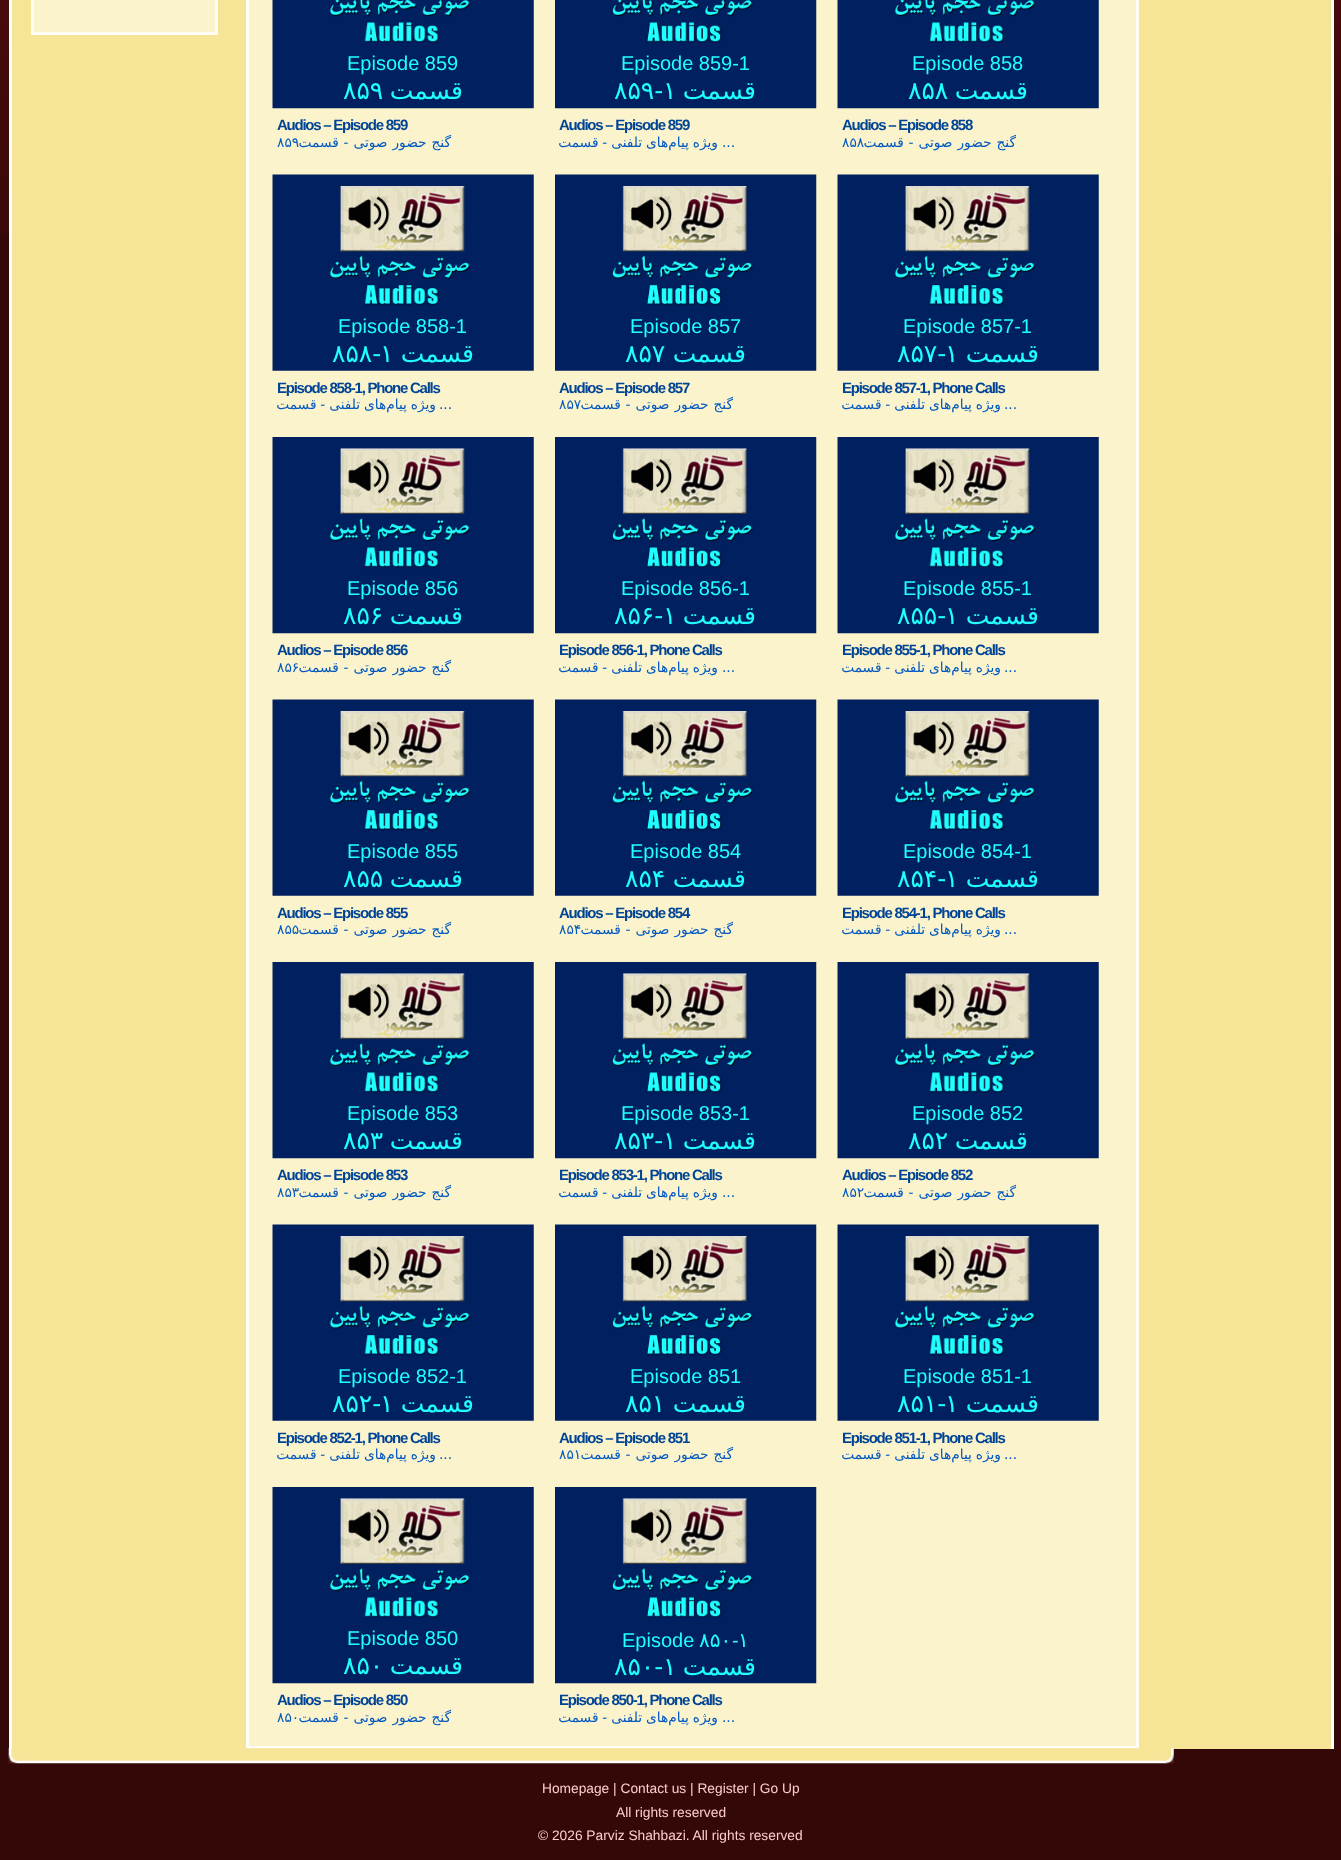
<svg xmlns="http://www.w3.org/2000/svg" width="1341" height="1860">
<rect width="100%" height="100%" fill="#350808"/>
<image x="0" y="0" width="1341" height="233" href="media/1.png"/>
<rect x="12" width="1319" height="1749" fill="#f6e497"/>
<rect x="1331" width="3" height="1749" fill="#fff"/>
<rect x="9" width="3" height="1749" fill="#fff"/>
<rect x="32.5" y="-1.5" width="184" height="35" fill="#faf3cb" stroke="#fffdf5" stroke-width="3"/>
<rect x="247.5" y="-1.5" width="890" height="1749" fill="#faf3cb" stroke="#fffdf5" stroke-width="3"/>
<image x="272" y="0" width="262" height="109" href="media/2.png"/>
<text x="347" y="70" style="font-family:Liberation Sans;font-size:20px;fill:#20feff">Episode 859</text>
<text x="343" y="99" style="font-family:DejaVu Sans;font-size:25px;fill:#20feff">۸۵۹</text>
<text x="463" y="99" style="font-family:DejaVu Sans;font-size:25px;direction:rtl;fill:#20feff">قسمت</text>
<text x="277" y="130" style="font-family:Liberation Sans;font-size:15px;font-weight:bold;letter-spacing:-1.25px;fill:#004496">Audios – Episode 859</text>
<text x="277" y="147" style="font-family:DejaVu Sans;font-size:13.75px;fill:#0057c2">۸۵۹</text>
<text x="451" y="147" word-spacing="0.5" style="font-family:DejaVu Sans;font-size:13.75px;direction:rtl;fill:#0057c2">گنج حضور صوتی - قسمت</text>
<image x="555" y="0" width="262" height="109" href="media/3.png"/>
<text x="621" y="70" style="font-family:Liberation Sans;font-size:20px;fill:#20feff">Episode 859-1</text>
<text x="614" y="99" style="font-family:DejaVu Sans;font-size:25px;fill:#20feff">۸۵۹-</text>
<text x="663" y="99" style="font-family:DejaVu Sans;font-size:25px;fill:#20feff">۱</text>
<text x="756" y="99" style="font-family:DejaVu Sans;font-size:25px;direction:rtl;fill:#20feff">قسمت</text>
<text x="559" y="130" style="font-family:Liberation Sans;font-size:15px;font-weight:bold;letter-spacing:-1.25px;fill:#004496">Audios – Episode 859</text>
<text x="718" y="147" word-spacing="-0.5" style="font-family:DejaVu Sans;font-size:13.75px;direction:rtl;fill:#0057c2">ویژه پیام‌های تلفنی - قسمت</text>
<text x="722" y="147" style="font-family:DejaVu Sans;font-size:13.75px;fill:#0057c2">...</text>
<image x="837" y="0" width="262" height="109" href="media/2.png"/>
<text x="912" y="70" style="font-family:Liberation Sans;font-size:20px;fill:#20feff">Episode 858</text>
<text x="908" y="99" style="font-family:DejaVu Sans;font-size:25px;fill:#20feff">۸۵۸</text>
<text x="1028" y="99" style="font-family:DejaVu Sans;font-size:25px;direction:rtl;fill:#20feff">قسمت</text>
<text x="842" y="130" style="font-family:Liberation Sans;font-size:15px;font-weight:bold;letter-spacing:-1.25px;fill:#004496">Audios – Episode 858</text>
<text x="842" y="147" style="font-family:DejaVu Sans;font-size:13.75px;fill:#0057c2">۸۵۸</text>
<text x="1016" y="147" word-spacing="0.5" style="font-family:DejaVu Sans;font-size:13.75px;direction:rtl;fill:#0057c2">گنج حضور صوتی - قسمت</text>
<image x="272" y="174" width="262" height="197" href="media/4.png"/>
<text x="338" y="333" style="font-family:Liberation Sans;font-size:20px;fill:#20feff">Episode 858-1</text>
<text x="332" y="362" style="font-family:DejaVu Sans;font-size:25px;fill:#20feff">۸۵۸-</text>
<text x="380" y="362" style="font-family:DejaVu Sans;font-size:25px;fill:#20feff">۱</text>
<text x="474" y="362" style="font-family:DejaVu Sans;font-size:25px;direction:rtl;fill:#20feff">قسمت</text>
<text x="277" y="393" style="font-family:Liberation Sans;font-size:15px;font-weight:bold;letter-spacing:-1.25px;fill:#004496">Episode 858-1, Phone Calls</text>
<text x="436" y="409" word-spacing="-0.5" style="font-family:DejaVu Sans;font-size:13.75px;direction:rtl;fill:#0057c2">ویژه پیام‌های تلفنی - قسمت</text>
<text x="439" y="409" style="font-family:DejaVu Sans;font-size:13.75px;fill:#0057c2">...</text>
<image x="555" y="174" width="262" height="197" href="media/5.png"/>
<text x="630" y="333" style="font-family:Liberation Sans;font-size:20px;fill:#20feff">Episode 857</text>
<text x="625" y="362" style="font-family:DejaVu Sans;font-size:25px;fill:#20feff">۸۵۷</text>
<text x="746" y="362" style="font-family:DejaVu Sans;font-size:25px;direction:rtl;fill:#20feff">قسمت</text>
<text x="559" y="393" style="font-family:Liberation Sans;font-size:15px;font-weight:bold;letter-spacing:-1.25px;fill:#004496">Audios – Episode 857</text>
<text x="559" y="409" style="font-family:DejaVu Sans;font-size:13.75px;fill:#0057c2">۸۵۷</text>
<text x="733" y="409" word-spacing="0.5" style="font-family:DejaVu Sans;font-size:13.75px;direction:rtl;fill:#0057c2">گنج حضور صوتی - قسمت</text>
<image x="837" y="174" width="262" height="197" href="media/4.png"/>
<text x="903" y="333" style="font-family:Liberation Sans;font-size:20px;fill:#20feff">Episode 857-1</text>
<text x="897" y="362" style="font-family:DejaVu Sans;font-size:25px;fill:#20feff">۸۵۷-</text>
<text x="945" y="362" style="font-family:DejaVu Sans;font-size:25px;fill:#20feff">۱</text>
<text x="1039" y="362" style="font-family:DejaVu Sans;font-size:25px;direction:rtl;fill:#20feff">قسمت</text>
<text x="842" y="393" style="font-family:Liberation Sans;font-size:15px;font-weight:bold;letter-spacing:-1.25px;fill:#004496">Episode 857-1, Phone Calls</text>
<text x="1001" y="409" word-spacing="-0.5" style="font-family:DejaVu Sans;font-size:13.75px;direction:rtl;fill:#0057c2">ویژه پیام‌های تلفنی - قسمت</text>
<text x="1004" y="409" style="font-family:DejaVu Sans;font-size:13.75px;fill:#0057c2">...</text>
<image x="272" y="437" width="262" height="197" href="media/6.png"/>
<text x="347" y="595" style="font-family:Liberation Sans;font-size:20px;fill:#20feff">Episode 856</text>
<text x="343" y="624" style="font-family:DejaVu Sans;font-size:25px;fill:#20feff">۸۵۶</text>
<text x="463" y="624" style="font-family:DejaVu Sans;font-size:25px;direction:rtl;fill:#20feff">قسمت</text>
<text x="277" y="655" style="font-family:Liberation Sans;font-size:15px;font-weight:bold;letter-spacing:-1.25px;fill:#004496">Audios – Episode 856</text>
<text x="277" y="672" style="font-family:DejaVu Sans;font-size:13.75px;fill:#0057c2">۸۵۶</text>
<text x="451" y="672" word-spacing="0.5" style="font-family:DejaVu Sans;font-size:13.75px;direction:rtl;fill:#0057c2">گنج حضور صوتی - قسمت</text>
<image x="555" y="437" width="262" height="197" href="media/7.png"/>
<text x="621" y="595" style="font-family:Liberation Sans;font-size:20px;fill:#20feff">Episode 856-1</text>
<text x="614" y="624" style="font-family:DejaVu Sans;font-size:25px;fill:#20feff">۸۵۶-</text>
<text x="663" y="624" style="font-family:DejaVu Sans;font-size:25px;fill:#20feff">۱</text>
<text x="756" y="624" style="font-family:DejaVu Sans;font-size:25px;direction:rtl;fill:#20feff">قسمت</text>
<text x="559" y="655" style="font-family:Liberation Sans;font-size:15px;font-weight:bold;letter-spacing:-1.25px;fill:#004496">Episode 856-1, Phone Calls</text>
<text x="718" y="672" word-spacing="-0.5" style="font-family:DejaVu Sans;font-size:13.75px;direction:rtl;fill:#0057c2">ویژه پیام‌های تلفنی - قسمت</text>
<text x="722" y="672" style="font-family:DejaVu Sans;font-size:13.75px;fill:#0057c2">...</text>
<image x="837" y="437" width="262" height="197" href="media/6.png"/>
<text x="903" y="595" style="font-family:Liberation Sans;font-size:20px;fill:#20feff">Episode 855-1</text>
<text x="897" y="624" style="font-family:DejaVu Sans;font-size:25px;fill:#20feff">۸۵۵-</text>
<text x="945" y="624" style="font-family:DejaVu Sans;font-size:25px;fill:#20feff">۱</text>
<text x="1039" y="624" style="font-family:DejaVu Sans;font-size:25px;direction:rtl;fill:#20feff">قسمت</text>
<text x="842" y="655" style="font-family:Liberation Sans;font-size:15px;font-weight:bold;letter-spacing:-1.25px;fill:#004496">Episode 855-1, Phone Calls</text>
<text x="1001" y="672" word-spacing="-0.5" style="font-family:DejaVu Sans;font-size:13.75px;direction:rtl;fill:#0057c2">ویژه پیام‌های تلفنی - قسمت</text>
<text x="1004" y="672" style="font-family:DejaVu Sans;font-size:13.75px;fill:#0057c2">...</text>
<image x="272" y="699" width="262" height="197" href="media/4.png"/>
<text x="347" y="858" style="font-family:Liberation Sans;font-size:20px;fill:#20feff">Episode 855</text>
<text x="343" y="887" style="font-family:DejaVu Sans;font-size:25px;fill:#20feff">۸۵۵</text>
<text x="463" y="887" style="font-family:DejaVu Sans;font-size:25px;direction:rtl;fill:#20feff">قسمت</text>
<text x="277" y="918" style="font-family:Liberation Sans;font-size:15px;font-weight:bold;letter-spacing:-1.25px;fill:#004496">Audios – Episode 855</text>
<text x="277" y="934" style="font-family:DejaVu Sans;font-size:13.75px;fill:#0057c2">۸۵۵</text>
<text x="451" y="934" word-spacing="0.5" style="font-family:DejaVu Sans;font-size:13.75px;direction:rtl;fill:#0057c2">گنج حضور صوتی - قسمت</text>
<image x="555" y="699" width="262" height="197" href="media/5.png"/>
<text x="630" y="858" style="font-family:Liberation Sans;font-size:20px;fill:#20feff">Episode 854</text>
<text x="625" y="887" style="font-family:DejaVu Sans;font-size:25px;fill:#20feff">۸۵۴</text>
<text x="746" y="887" style="font-family:DejaVu Sans;font-size:25px;direction:rtl;fill:#20feff">قسمت</text>
<text x="559" y="918" style="font-family:Liberation Sans;font-size:15px;font-weight:bold;letter-spacing:-1.25px;fill:#004496">Audios – Episode 854</text>
<text x="559" y="934" style="font-family:DejaVu Sans;font-size:13.75px;fill:#0057c2">۸۵۴</text>
<text x="733" y="934" word-spacing="0.5" style="font-family:DejaVu Sans;font-size:13.75px;direction:rtl;fill:#0057c2">گنج حضور صوتی - قسمت</text>
<image x="837" y="699" width="262" height="197" href="media/4.png"/>
<text x="903" y="858" style="font-family:Liberation Sans;font-size:20px;fill:#20feff">Episode 854-1</text>
<text x="897" y="887" style="font-family:DejaVu Sans;font-size:25px;fill:#20feff">۸۵۴-</text>
<text x="945" y="887" style="font-family:DejaVu Sans;font-size:25px;fill:#20feff">۱</text>
<text x="1039" y="887" style="font-family:DejaVu Sans;font-size:25px;direction:rtl;fill:#20feff">قسمت</text>
<text x="842" y="918" style="font-family:Liberation Sans;font-size:15px;font-weight:bold;letter-spacing:-1.25px;fill:#004496">Episode 854-1, Phone Calls</text>
<text x="1001" y="934" word-spacing="-0.5" style="font-family:DejaVu Sans;font-size:13.75px;direction:rtl;fill:#0057c2">ویژه پیام‌های تلفنی - قسمت</text>
<text x="1004" y="934" style="font-family:DejaVu Sans;font-size:13.75px;fill:#0057c2">...</text>
<image x="272" y="962" width="262" height="197" href="media/6.png"/>
<text x="347" y="1120" style="font-family:Liberation Sans;font-size:20px;fill:#20feff">Episode 853</text>
<text x="343" y="1149" style="font-family:DejaVu Sans;font-size:25px;fill:#20feff">۸۵۳</text>
<text x="463" y="1149" style="font-family:DejaVu Sans;font-size:25px;direction:rtl;fill:#20feff">قسمت</text>
<text x="277" y="1180" style="font-family:Liberation Sans;font-size:15px;font-weight:bold;letter-spacing:-1.25px;fill:#004496">Audios – Episode 853</text>
<text x="277" y="1197" style="font-family:DejaVu Sans;font-size:13.75px;fill:#0057c2">۸۵۳</text>
<text x="451" y="1197" word-spacing="0.5" style="font-family:DejaVu Sans;font-size:13.75px;direction:rtl;fill:#0057c2">گنج حضور صوتی - قسمت</text>
<image x="555" y="962" width="262" height="197" href="media/7.png"/>
<text x="621" y="1120" style="font-family:Liberation Sans;font-size:20px;fill:#20feff">Episode 853-1</text>
<text x="614" y="1149" style="font-family:DejaVu Sans;font-size:25px;fill:#20feff">۸۵۳-</text>
<text x="663" y="1149" style="font-family:DejaVu Sans;font-size:25px;fill:#20feff">۱</text>
<text x="756" y="1149" style="font-family:DejaVu Sans;font-size:25px;direction:rtl;fill:#20feff">قسمت</text>
<text x="559" y="1180" style="font-family:Liberation Sans;font-size:15px;font-weight:bold;letter-spacing:-1.25px;fill:#004496">Episode 853-1, Phone Calls</text>
<text x="718" y="1197" word-spacing="-0.5" style="font-family:DejaVu Sans;font-size:13.75px;direction:rtl;fill:#0057c2">ویژه پیام‌های تلفنی - قسمت</text>
<text x="722" y="1197" style="font-family:DejaVu Sans;font-size:13.75px;fill:#0057c2">...</text>
<image x="837" y="962" width="262" height="197" href="media/6.png"/>
<text x="912" y="1120" style="font-family:Liberation Sans;font-size:20px;fill:#20feff">Episode 852</text>
<text x="908" y="1149" style="font-family:DejaVu Sans;font-size:25px;fill:#20feff">۸۵۲</text>
<text x="1028" y="1149" style="font-family:DejaVu Sans;font-size:25px;direction:rtl;fill:#20feff">قسمت</text>
<text x="842" y="1180" style="font-family:Liberation Sans;font-size:15px;font-weight:bold;letter-spacing:-1.25px;fill:#004496">Audios – Episode 852</text>
<text x="842" y="1197" style="font-family:DejaVu Sans;font-size:13.75px;fill:#0057c2">۸۵۲</text>
<text x="1016" y="1197" word-spacing="0.5" style="font-family:DejaVu Sans;font-size:13.75px;direction:rtl;fill:#0057c2">گنج حضور صوتی - قسمت</text>
<image x="272" y="1224" width="262" height="197" href="media/4.png"/>
<text x="338" y="1383" style="font-family:Liberation Sans;font-size:20px;fill:#20feff">Episode 852-1</text>
<text x="332" y="1412" style="font-family:DejaVu Sans;font-size:25px;fill:#20feff">۸۵۲-</text>
<text x="380" y="1412" style="font-family:DejaVu Sans;font-size:25px;fill:#20feff">۱</text>
<text x="474" y="1412" style="font-family:DejaVu Sans;font-size:25px;direction:rtl;fill:#20feff">قسمت</text>
<text x="277" y="1443" style="font-family:Liberation Sans;font-size:15px;font-weight:bold;letter-spacing:-1.25px;fill:#004496">Episode 852-1, Phone Calls</text>
<text x="436" y="1459" word-spacing="-0.5" style="font-family:DejaVu Sans;font-size:13.75px;direction:rtl;fill:#0057c2">ویژه پیام‌های تلفنی - قسمت</text>
<text x="439" y="1459" style="font-family:DejaVu Sans;font-size:13.75px;fill:#0057c2">...</text>
<image x="555" y="1224" width="262" height="197" href="media/5.png"/>
<text x="630" y="1383" style="font-family:Liberation Sans;font-size:20px;fill:#20feff">Episode 851</text>
<text x="625" y="1412" style="font-family:DejaVu Sans;font-size:25px;fill:#20feff">۸۵۱</text>
<text x="746" y="1412" style="font-family:DejaVu Sans;font-size:25px;direction:rtl;fill:#20feff">قسمت</text>
<text x="559" y="1443" style="font-family:Liberation Sans;font-size:15px;font-weight:bold;letter-spacing:-1.25px;fill:#004496">Audios – Episode 851</text>
<text x="559" y="1459" style="font-family:DejaVu Sans;font-size:13.75px;fill:#0057c2">۸۵۱</text>
<text x="733" y="1459" word-spacing="0.5" style="font-family:DejaVu Sans;font-size:13.75px;direction:rtl;fill:#0057c2">گنج حضور صوتی - قسمت</text>
<image x="837" y="1224" width="262" height="197" href="media/4.png"/>
<text x="903" y="1383" style="font-family:Liberation Sans;font-size:20px;fill:#20feff">Episode 851-1</text>
<text x="897" y="1412" style="font-family:DejaVu Sans;font-size:25px;fill:#20feff">۸۵۱-</text>
<text x="945" y="1412" style="font-family:DejaVu Sans;font-size:25px;fill:#20feff">۱</text>
<text x="1039" y="1412" style="font-family:DejaVu Sans;font-size:25px;direction:rtl;fill:#20feff">قسمت</text>
<text x="842" y="1443" style="font-family:Liberation Sans;font-size:15px;font-weight:bold;letter-spacing:-1.25px;fill:#004496">Episode 851-1, Phone Calls</text>
<text x="1001" y="1459" word-spacing="-0.5" style="font-family:DejaVu Sans;font-size:13.75px;direction:rtl;fill:#0057c2">ویژه پیام‌های تلفنی - قسمت</text>
<text x="1004" y="1459" style="font-family:DejaVu Sans;font-size:13.75px;fill:#0057c2">...</text>
<image x="272" y="1487" width="262" height="197" href="media/6.png"/>
<text x="347" y="1645" style="font-family:Liberation Sans;font-size:20px;fill:#20feff">Episode 850</text>
<text x="343" y="1674" style="font-family:DejaVu Sans;font-size:25px;fill:#20feff">۸۵۰</text>
<text x="463" y="1674" style="font-family:DejaVu Sans;font-size:25px;direction:rtl;fill:#20feff">قسمت</text>
<text x="277" y="1705" style="font-family:Liberation Sans;font-size:15px;font-weight:bold;letter-spacing:-1.25px;fill:#004496">Audios – Episode 850</text>
<text x="277" y="1722" style="font-family:DejaVu Sans;font-size:13.75px;fill:#0057c2">۸۵۰</text>
<text x="451" y="1722" word-spacing="0.5" style="font-family:DejaVu Sans;font-size:13.75px;direction:rtl;fill:#0057c2">گنج حضور صوتی - قسمت</text>
<image x="555" y="1487" width="262" height="197" href="media/7.png"/>
<text x="622" y="1647" style="font-family:Liberation Sans;font-size:20px;fill:#20feff">Episode</text>
<text x="699" y="1647" style="font-family:DejaVu Sans;font-size:20px;fill:#20feff">۸۵۰</text>
<text x="732" y="1647" style="font-family:Liberation Sans;font-size:20px;fill:#20feff">-</text>
<text x="738" y="1647" style="font-family:DejaVu Sans;font-size:20px;fill:#20feff">۱</text>
<text x="614" y="1675" style="font-family:DejaVu Sans;font-size:25px;fill:#20feff">۸۵۰-</text>
<text x="663" y="1675" style="font-family:DejaVu Sans;font-size:25px;fill:#20feff">۱</text>
<text x="756" y="1675" style="font-family:DejaVu Sans;font-size:25px;direction:rtl;fill:#20feff">قسمت</text>
<text x="559" y="1705" style="font-family:Liberation Sans;font-size:15px;font-weight:bold;letter-spacing:-1.25px;fill:#004496">Episode 850-1, Phone Calls</text>
<text x="718" y="1722" word-spacing="-0.5" style="font-family:DejaVu Sans;font-size:13.75px;direction:rtl;fill:#0057c2">ویژه پیام‌های تلفنی - قسمت</text>
<text x="722" y="1722" style="font-family:DejaVu Sans;font-size:13.75px;fill:#0057c2">...</text>
<image x="8" y="1748" width="1166" height="16" href="media/8.png"/>
<text x="542" y="1793" style="font-family:Liberation Sans;font-size:13.75px;fill:#fcc">Homepage | Contact us | Register | Go Up</text>
<text x="616" y="1817" style="font-family:Liberation Sans;font-size:13.75px;fill:#fcc">All rights reserved</text>
<text x="538" y="1840" style="font-family:Liberation Sans;font-size:13.75px;fill:#fcc">© 2026 Parviz Shahbazi. All rights reserved</text>
</svg>
